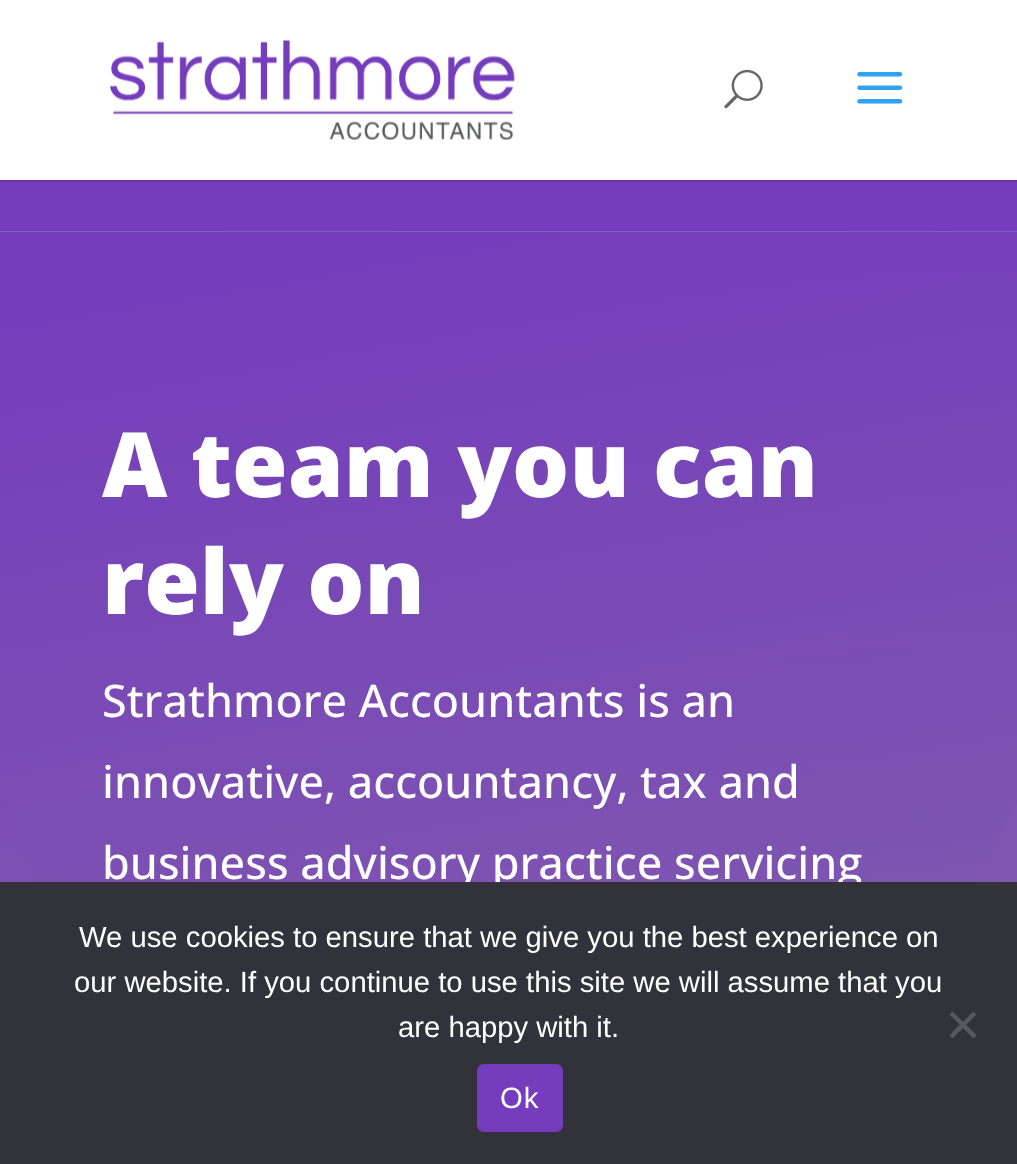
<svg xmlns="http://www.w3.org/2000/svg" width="1017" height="1164">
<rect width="100%" height="100%" fill="#753cbd"/>
<rect y="180" width="1017" height="2" fill="#6936aa"/>
<rect width="1017" height="180" fill="#fff"/>
<image x="110" y="40" width="405" height="100" href="media/1.png"/>
<image x="724" y="69" width="39" height="40" href="media/2.png"/>
<image x="857" y="72" width="46" height="32" href="media/3.png"/>
<image x="0" y="231" width="1017" height="651" href="media/4.png"/>
<text x="102" y="497" style="font-family:Open Sans;font-size:90px;font-weight:800;fill:#fff">A team you can</text>
<text x="102" y="614" style="font-family:Open Sans;font-size:90px;font-weight:800;fill:#fff">rely on</text>
<text x="102" y="717" style="font-family:Open Sans;font-size:45px;font-weight:500;fill:#fff">Strathmore Accountants is an</text>
<text x="102" y="798" style="font-family:Open Sans;font-size:45px;font-weight:500;fill:#fff">innovative, accountancy, tax and</text>
<text x="102" y="879" style="font-family:Open Sans;font-size:45px;font-weight:500;fill:#fff">business advisory practice servicing</text>
<rect y="882" width="1017" height="282" fill="#32323a"/>
<text x="79" y="947" style="font-family:Liberation Sans;font-size:29.25px;fill:#fff">We use cookies to ensure that we give you the best experience on</text>
<text x="74" y="992" style="font-family:Liberation Sans;font-size:29.25px;fill:#fff">our website. If you continue to use this site we will assume that you</text>
<text x="398" y="1037" style="font-family:Liberation Sans;font-size:29.25px;fill:#fff">are happy with it.</text>
<path d="M973.5 1011.5l3 3l-24 24l-3-3.5z" fill="#59595d"/>
<path d="M949.5 1014.5l3-3l24 23.5l-3 3.5z" fill="#59595d"/>
<rect x="477" y="1064" width="86" height="68" rx="7" fill="#753cbd"/>
<text x="500" y="1108" style="font-family:Liberation Sans;font-size:29.25px;letter-spacing:1px;fill:#fff">Ok</text>
</svg>
